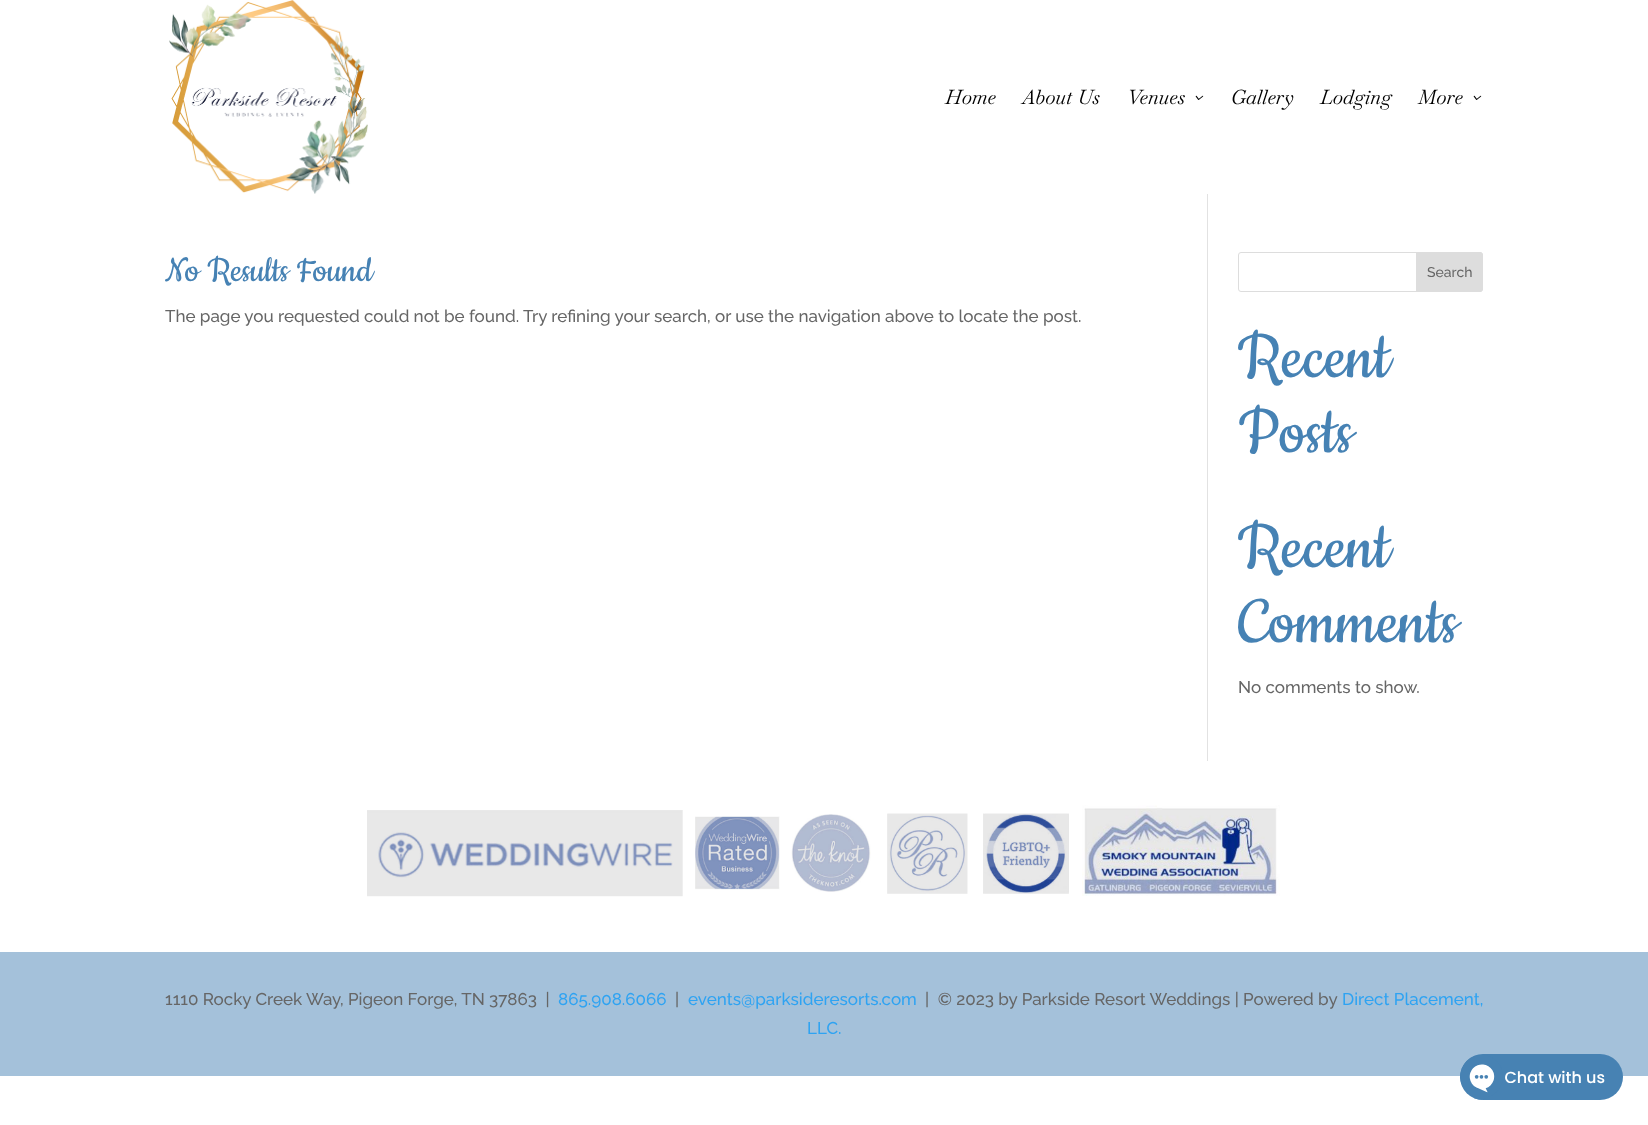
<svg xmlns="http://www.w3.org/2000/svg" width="1648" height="1125">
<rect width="100%" height="100%" fill="#fff"/>
<image x="169" y="0" width="199" height="194" href="media/1.png"/>
<text x="945" y="104" style="font-family:Baskervville;font-size:20px;font-style:italic;fill:#000">Home</text>
<text x="1022" y="104" style="font-family:Baskervville;font-size:20px;font-style:italic;fill:#000">About Us</text>
<text x="1127" y="104" style="font-family:Baskervville;font-size:20px;font-style:italic;fill:#000">Venues</text>
<image x="1195" y="95" width="9" height="5" href="media/2.png"/>
<text x="1231" y="104" style="font-family:Baskervville;font-size:20px;font-style:italic;fill:#000">Gallery</text>
<text x="1320" y="104" style="font-family:Baskervville;font-size:20px;font-style:italic;fill:#000">Lodging</text>
<text x="1418" y="104" style="font-family:Baskervville;font-size:20px;font-style:italic;fill:#000">More</text>
<image x="1473" y="95" width="9" height="5" href="media/2.png"/>
<rect x="1207" y="194" width="1" height="567" fill="#e2e2e2"/>
<text x="165" y="281" style="font-family:Cookie;font-size:40px;fill:#4682b4">No Results Found</text>
<text x="165" y="322" style="font-family:Raleway;font-size:17px;font-weight:500;fill:#666">The page you requested could not be found. Try refining your search, or use the navigation above to locate the post.</text>
<rect x="1238.5" y="252.5" width="244" height="39" rx="2.5" fill="none" stroke="#ddd"/>
<path d="M1416.5 252.5h63.5c1.5 0 2.5 1 2.5 2.5v34c0 1.5-1 2.5-2.5 2.5h-63.5z" fill="#ddd" stroke="#ddd"/>
<text x="1427" y="277" style="font-family:Raleway;font-size:14px;font-weight:500;fill:#666">Search</text>
<text x="1238" y="377" style="font-family:Cookie;font-size:75px;fill:#4682b4">Recent</text>
<text x="1238" y="452" style="font-family:Cookie;font-size:75px;fill:#4682b4">Posts</text>
<text x="1238" y="567" style="font-family:Cookie;font-size:75px;fill:#4682b4">Recent</text>
<text x="1238" y="642" style="font-family:Cookie;font-size:75px;fill:#4682b4">Comments</text>
<text x="1238" y="693" style="font-family:Raleway;font-size:17px;font-weight:500;fill:#666">No comments to show.</text>
<image x="367" y="810" width="316" height="87" href="media/3.png"/>
<image x="695" y="816" width="85" height="74" href="media/4.png"/>
<image x="791" y="814" width="80" height="78" href="media/5.png"/>
<image x="887" y="813" width="81" height="81" href="media/6.png"/>
<image x="983" y="813" width="86" height="81" href="media/7.png"/>
<image x="1082" y="805" width="198" height="91" href="media/8.png"/>
<rect y="952" width="1648" height="124" fill="#a4c1da"/>
<text x="165" y="1005" style="font-family:Raleway;font-size:17px;font-weight:500;fill:#666" xml:space="preserve">1110 Rocky Creek Way, Pigeon Forge, TN 37863  |</text>
<text x="558" y="1005" style="font-family:Raleway;font-size:17px;font-weight:500;fill:#2ea3f2">865.908.6066</text>
<text x="675" y="1005" style="font-family:Raleway;font-size:17px;font-weight:500;fill:#666">|</text>
<text x="688" y="1005" style="font-family:Raleway;font-size:17px;font-weight:500;fill:#2ea3f2">events@parksideresorts.com</text>
<text x="925" y="1005" style="font-family:Raleway;font-size:17px;font-weight:500;fill:#666" xml:space="preserve">|  © 2023 by Parkside Resort Weddings | Powered by</text>
<text x="1342" y="1005" style="font-family:Raleway;font-size:17px;font-weight:500;fill:#2ea3f2">Direct Placement,</text>
<text x="807" y="1034" style="font-family:Raleway;font-size:17px;font-weight:500;fill:#2ea3f2">LLC.</text>
<image x="1460" y="1054" width="163" height="46" href="media/9.png"/>
</svg>
